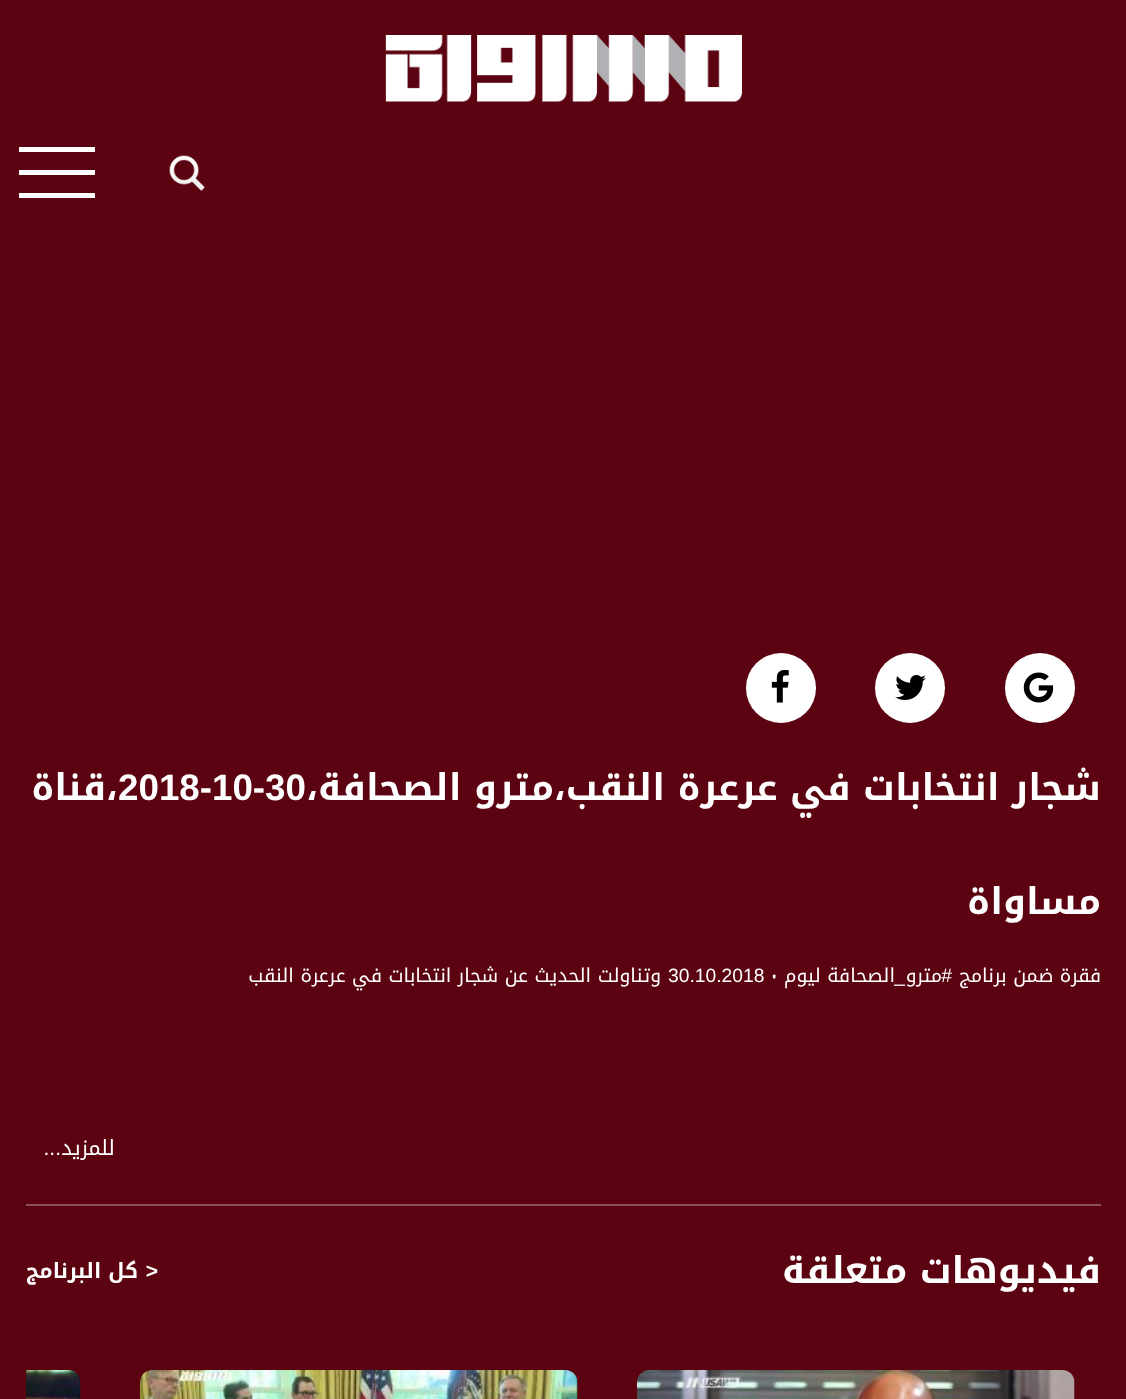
<svg xmlns="http://www.w3.org/2000/svg" width="1126" height="1399">
<rect width="100%" height="100%" fill="#5c0312"/>
<image x="385" y="35" width="357" height="67" href="media/1.png"/>
<image x="169" y="155" width="36" height="36" href="media/2.png"/>
<rect x="19" y="147" width="76" height="5" fill="#fff"/>
<rect x="19" y="170" width="76" height="5" fill="#fff"/>
<rect x="19" y="193" width="76" height="5" fill="#fff"/>
<circle cx="1040" cy="688" r="35" fill="#fff"/>
<image x="1023" y="672" width="31" height="31" href="media/3.png"/>
<circle cx="910" cy="688" r="35" fill="#fff"/>
<image x="895" y="675" width="31" height="25" href="media/4.png"/>
<circle cx="781" cy="688" r="35" fill="#fff"/>
<image x="771" y="670" width="18" height="33" href="media/5.png"/>
<text x="1101" y="800" style="font-family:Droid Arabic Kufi;font-size:36.75px;font-weight:bold;direction:rtl;fill:#fff">شجار انتخابات في عرعرة النقب،مترو الصحافة،</text>
<text x="118" y="800" style="font-family:Liberation Sans;font-size:36.75px;font-weight:bold;fill:#fff">2018-10-30</text>
<text x="118" y="800" style="font-family:Droid Arabic Kufi;font-size:36.75px;font-weight:bold;direction:rtl;fill:#fff">،قناة</text>
<text x="1101" y="914" style="font-family:Droid Arabic Kufi;font-size:36.75px;font-weight:bold;direction:rtl;fill:#fff">مساواة</text>
<text x="1101" y="982" style="font-family:Droid Arabic Kufi;font-size:19.25px;direction:rtl;fill:#fff">فقرة ضمن برنامج</text>
<text x="952" y="982" style="font-family:Liberation Sans;font-size:19.25px;direction:rtl;fill:#fff">#</text>
<text x="942" y="982" style="font-family:Droid Arabic Kufi;font-size:19.25px;direction:rtl;fill:#fff">مترو</text>
<text x="895" y="982" style="font-family:Droid Arabic Kufi;font-size:19.25px;direction:rtl;fill:#fff">الصحافة ليوم</text>
<text x="771" y="982" style="font-family:Droid Arabic Kufi;font-size:19.25px;fill:#fff">٠</text>
<text x="668" y="982" style="font-family:Liberation Sans;font-size:19.25px;fill:#fff">30.10.2018</text>
<text x="661" y="982" style="font-family:Droid Arabic Kufi;font-size:19.25px;direction:rtl;fill:#fff">وتناولت الحديث عن شجار انتخابات في عرعرة النقب</text>
<text x="905" y="982" style="font-family:Liberation Sans;font-size:19.25px;direction:rtl;fill:#fff">_</text>
<text x="115" y="1155" style="font-family:Droid Arabic Kufi;font-size:21px;direction:rtl;fill:#fff">للمزيد</text>
<text x="61" y="1155" style="font-family:Liberation Sans;font-size:21px;direction:rtl;fill:#fff">...</text>
<rect x="26" y="1204" width="1075" height="2" fill="#8d4f59"/>
<text x="1101" y="1283" style="font-family:Droid Arabic Kufi;font-size:36.75px;font-weight:bold;direction:rtl;fill:#fff">فيديوهات متعلقة</text>
<text x="158" y="1278" style="font-family:Liberation Sans;font-size:21px;font-weight:bold;direction:rtl;fill:#fff">&lt;</text>
<text x="138" y="1278" style="font-family:Droid Arabic Kufi;font-size:21px;font-weight:bold;direction:rtl;fill:#fff">كل البرنامج</text>
<image x="637" y="1370" width="438" height="29" href="media/6.png"/>
<image x="140" y="1370" width="438" height="29" href="media/7.png"/>
<image x="26" y="1370" width="55" height="29" href="media/8.png"/>
</svg>
